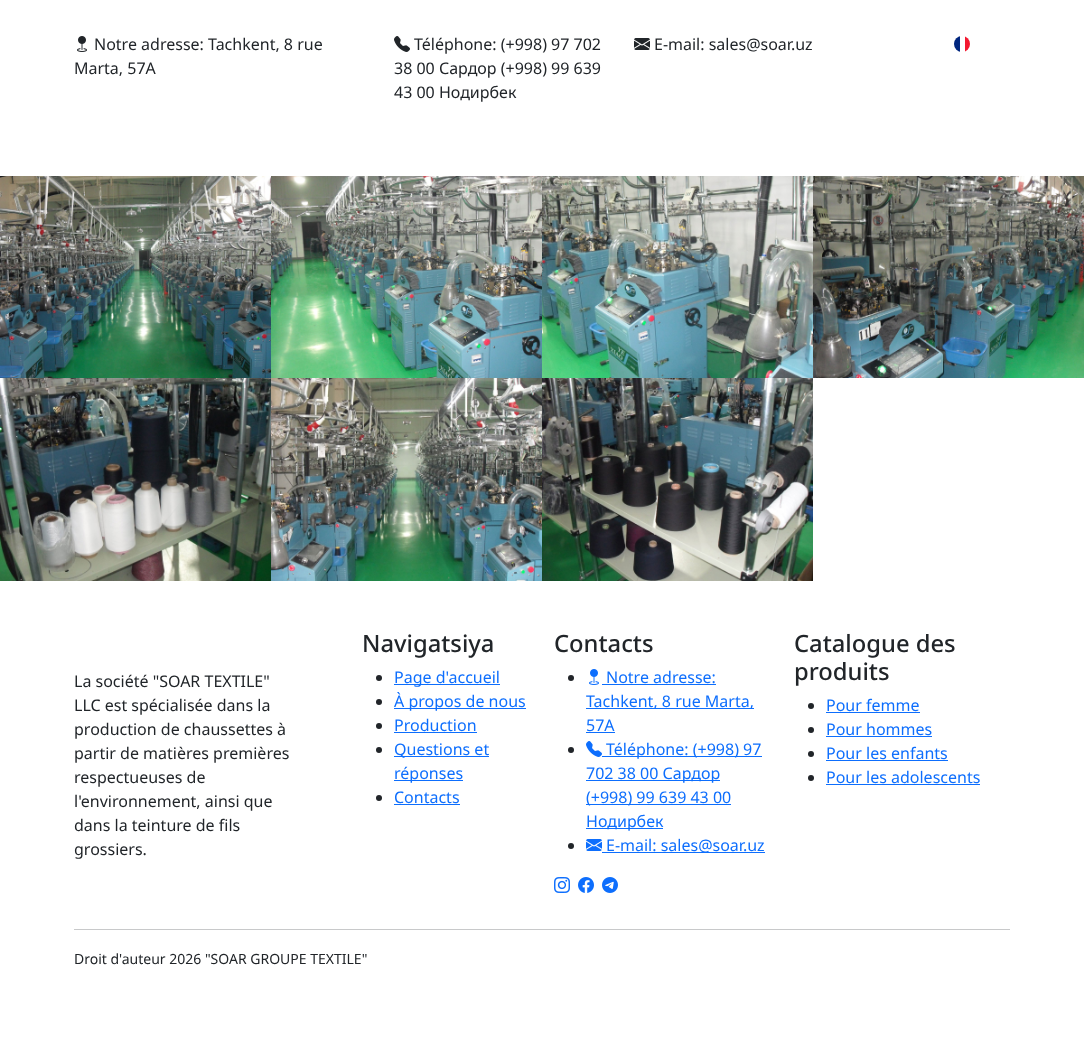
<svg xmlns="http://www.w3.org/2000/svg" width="1084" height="1053">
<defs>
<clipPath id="clip1"><rect x="954" y="36" width="16" height="16" rx="8"/></clipPath>
</defs>
<rect width="100%" height="100%" fill="#fff"/>
<image x="77" y="36" width="10" height="16" href="media/1.png"/>
<text x="94" y="50" style="font-family:Noto Sans;font-size:16px;fill:#212529">Notre adresse: Tachkent, 8 rue</text>
<text x="74" y="74" style="font-family:Noto Sans;font-size:16px;fill:#212529">Marta, 57A</text>
<image x="394" y="36" width="16" height="16" href="media/2.png"/>
<text x="414" y="50" style="font-family:Noto Sans;font-size:16px;fill:#212529">Téléphone: (+998) 97 702</text>
<text x="394" y="74" style="font-family:Noto Sans;font-size:16px;fill:#212529">38 00 Сардор (+998) 99 639</text>
<text x="394" y="98" style="font-family:Noto Sans;font-size:16px;fill:#212529">43 00 Нодирбек</text>
<image x="634" y="38" width="16" height="12" href="media/3.png"/>
<text x="654" y="50" style="font-family:Noto Sans;font-size:16px;fill:#212529">E-mail: sales@soar.uz</text>
<g clip-path="url(#clip1)">
<rect x="954" y="36" width="6" height="16" fill="#00267f"/>
<rect x="965" y="36" width="5" height="16" fill="#f31830"/>
</g>
<image x="0" y="176" width="271" height="202" href="media/4.png"/>
<image x="271" y="176" width="271" height="202" href="media/5.png"/>
<image x="542" y="176" width="271" height="202" href="media/6.png"/>
<image x="813" y="176" width="271" height="202" href="media/7.png"/>
<image x="0" y="378" width="271" height="203" href="media/8.png"/>
<image x="271" y="378" width="271" height="203" href="media/9.png"/>
<image x="542" y="378" width="271" height="203" href="media/10.png"/>
<text x="74" y="687" style="font-family:Noto Sans;font-size:16px;fill:#212529">La société "SOAR TEXTILE"</text>
<text x="74" y="711" style="font-family:Noto Sans;font-size:16px;fill:#212529">LLC est spécialisée dans la</text>
<text x="74" y="735" style="font-family:Noto Sans;font-size:16px;fill:#212529">production de chaussettes à</text>
<text x="74" y="759" style="font-family:Noto Sans;font-size:16px;fill:#212529">partir de matières premières</text>
<text x="74" y="783" style="font-family:Noto Sans;font-size:16px;fill:#212529">respectueuses de</text>
<text x="74" y="807" style="font-family:Noto Sans;font-size:16px;fill:#212529">l'environnement, ainsi que</text>
<text x="74" y="831" style="font-family:Noto Sans;font-size:16px;fill:#212529">dans la teinture de fils</text>
<text x="74" y="855" style="font-family:Noto Sans;font-size:16px;fill:#212529">grossiers.</text>
<text x="362" y="652" style="font-family:Noto Sans;font-size:23.75px;font-weight:500;fill:#212529">Navigatsiya</text>
<circle cx="379" cy="678" r="3" fill="#212529"/>
<rect x="394" y="684" width="106" height="1" fill="#0d6efd"/>
<text x="394" y="683" style="font-family:Noto Sans;font-size:16px;fill:#0d6efd">Page d'accueil</text>
<circle cx="379" cy="702" r="3" fill="#212529"/>
<rect x="394" y="708" width="132" height="1" fill="#0d6efd"/>
<text x="394" y="707" style="font-family:Noto Sans;font-size:16px;fill:#0d6efd">À propos de nous</text>
<circle cx="379" cy="726" r="3" fill="#212529"/>
<text x="394" y="731" style="font-family:Noto Sans;font-size:16px;fill:#0d6efd">Production</text>
<rect x="394" y="732" width="83" height="1" fill="#0d6efd"/>
<circle cx="379" cy="750" r="3" fill="#212529"/>
<rect x="394" y="756" width="95" height="1" fill="#0d6efd"/>
<text x="394" y="755" style="font-family:Noto Sans;font-size:16px;fill:#0d6efd">Questions et</text>
<rect x="394" y="780" width="69" height="1" fill="#0d6efd"/>
<text x="394" y="779" style="font-family:Noto Sans;font-size:16px;fill:#0d6efd">réponses</text>
<circle cx="379" cy="798" r="3" fill="#212529"/>
<text x="394" y="803" style="font-family:Noto Sans;font-size:16px;fill:#0d6efd">Contacts</text>
<rect x="394" y="804" width="66" height="1" fill="#0d6efd"/>
<text x="554" y="652" style="font-family:Noto Sans;font-size:23.75px;font-weight:500;fill:#212529">Contacts</text>
<circle cx="571" cy="678" r="3" fill="#212529"/>
<image x="589" y="669" width="10" height="16" href="media/11.png"/>
<text x="606" y="683" style="font-family:Noto Sans;font-size:16px;fill:#0d6efd">Notre adresse:</text>
<rect x="602" y="684" width="114" height="1" fill="#0d6efd"/>
<rect x="586" y="708" width="168" height="1" fill="#0d6efd"/>
<text x="586" y="707" style="font-family:Noto Sans;font-size:16px;fill:#0d6efd">Tachkent, 8 rue Marta,</text>
<text x="586" y="731" style="font-family:Noto Sans;font-size:16px;fill:#0d6efd">57A</text>
<rect x="586" y="732" width="29" height="1" fill="#0d6efd"/>
<circle cx="571" cy="750" r="3" fill="#212529"/>
<image x="586" y="741" width="16" height="16" href="media/12.png"/>
<rect x="602" y="756" width="160" height="1" fill="#0d6efd"/>
<text x="606" y="755" style="font-family:Noto Sans;font-size:16px;fill:#0d6efd">Téléphone: (+998) 97</text>
<rect x="586" y="780" width="134" height="1" fill="#0d6efd"/>
<text x="586" y="779" style="font-family:Noto Sans;font-size:16px;fill:#0d6efd">702 38 00 Сардор</text>
<rect x="586" y="804" width="145" height="1" fill="#0d6efd"/>
<text x="586" y="803" style="font-family:Noto Sans;font-size:16px;fill:#0d6efd">(+998) 99 639 43 00</text>
<rect x="586" y="828" width="77" height="1" fill="#0d6efd"/>
<text x="586" y="827" style="font-family:Noto Sans;font-size:16px;fill:#0d6efd">Нодирбек</text>
<circle cx="571" cy="846" r="3" fill="#212529"/>
<image x="586" y="839" width="16" height="12" href="media/13.png"/>
<rect x="602" y="852" width="163" height="1" fill="#0d6efd"/>
<text x="606" y="851" style="font-family:Noto Sans;font-size:16px;fill:#0d6efd">E-mail: sales@soar.uz</text>
<image x="554" y="877" width="16" height="16" href="media/14.png"/>
<image x="578" y="877" width="16" height="16" href="media/15.png"/>
<image x="602" y="877" width="16" height="16" href="media/16.png"/>
<text x="794" y="652" style="font-family:Noto Sans;font-size:23.75px;font-weight:500;fill:#212529">Catalogue des</text>
<text x="794" y="680" style="font-family:Noto Sans;font-size:23.75px;font-weight:500;fill:#212529">produits</text>
<circle cx="811" cy="706" r="3" fill="#212529"/>
<text x="826" y="711" style="font-family:Noto Sans;font-size:16px;fill:#0d6efd">Pour femme</text>
<rect x="826" y="712" width="94" height="1" fill="#0d6efd"/>
<circle cx="811" cy="730" r="3" fill="#212529"/>
<text x="826" y="735" style="font-family:Noto Sans;font-size:16px;fill:#0d6efd">Pour hommes</text>
<rect x="826" y="736" width="106" height="1" fill="#0d6efd"/>
<circle cx="811" cy="754" r="3" fill="#212529"/>
<text x="826" y="759" style="font-family:Noto Sans;font-size:16px;fill:#0d6efd">Pour les enfants</text>
<rect x="826" y="760" width="122" height="1" fill="#0d6efd"/>
<circle cx="811" cy="778" r="3" fill="#212529"/>
<text x="826" y="783" style="font-family:Noto Sans;font-size:16px;fill:#0d6efd">Pour les adolescents</text>
<rect x="826" y="784" width="154" height="1" fill="#0d6efd"/>
<rect x="74" y="929" width="936" height="1" fill="#c8c9ca"/>
<text x="74" y="964" style="font-family:Noto Sans;font-size:14px;fill:#212529">Droit d'auteur 2026 "SOAR GROUPE TEXTILE"</text>
</svg>
